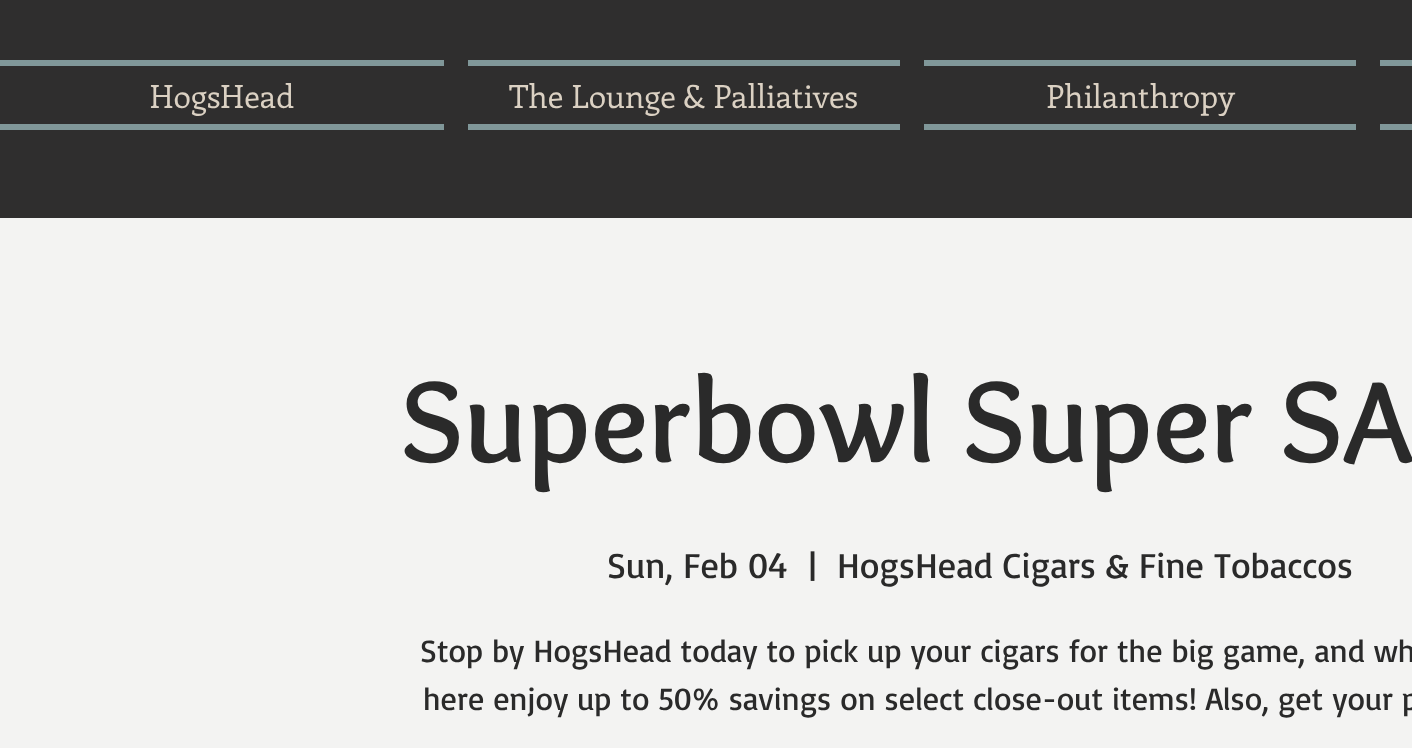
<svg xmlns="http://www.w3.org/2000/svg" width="1412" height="748">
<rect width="100%" height="100%" fill="#2f2e2e"/>
<rect y="60" width="444" height="6" fill="#809799"/>
<rect y="124" width="444" height="6" fill="#809799"/>
<text x="150" y="108" style="font-family:Enriqueta;font-size:32px;fill:#dbd1c3">HogsHead</text>
<rect x="468" y="60" width="432" height="6" fill="#809799"/>
<rect x="468" y="124" width="432" height="6" fill="#809799"/>
<text x="509" y="108" style="font-family:Enriqueta;font-size:32px;fill:#dbd1c3">The Lounge &amp; Palliatives</text>
<rect x="924" y="60" width="432" height="6" fill="#809799"/>
<rect x="924" y="124" width="432" height="6" fill="#809799"/>
<text x="1046" y="108" style="font-family:Enriqueta;font-size:32px;fill:#dbd1c3">Philanthropy</text>
<rect x="1380" y="60" width="32" height="6" fill="#809799"/>
<rect x="1380" y="124" width="32" height="6" fill="#809799"/>
<rect y="218" width="1412" height="530" fill="#f3f3f2"/>
<text x="400" y="462" style="font-family:Overlock;font-size:120px;font-weight:bold;fill:#2a2a2a">Superbowl Super SA</text>
<text x="607" y="578" style="font-family:Basic;font-size:36px;fill:#2a2a2a">Sun, Feb 04</text>
<text x="808" y="578" style="font-family:Basic;font-size:36px;fill:#2a2a2a">|</text>
<text x="837" y="578" style="font-family:Basic;font-size:36px;fill:#2a2a2a">HogsHead Cigars &amp; Fine Tobaccos</text>
<text x="420" y="662" style="font-family:Basic;font-size:32px;fill:#2a2a2a">Stop by HogsHead today to pick up your cigars for the big game, and wh</text>
<text x="423" y="710" style="font-family:Basic;font-size:32px;fill:#2a2a2a">here enjoy up to 50% savings on select close-out items! Also, get your p</text>
</svg>
